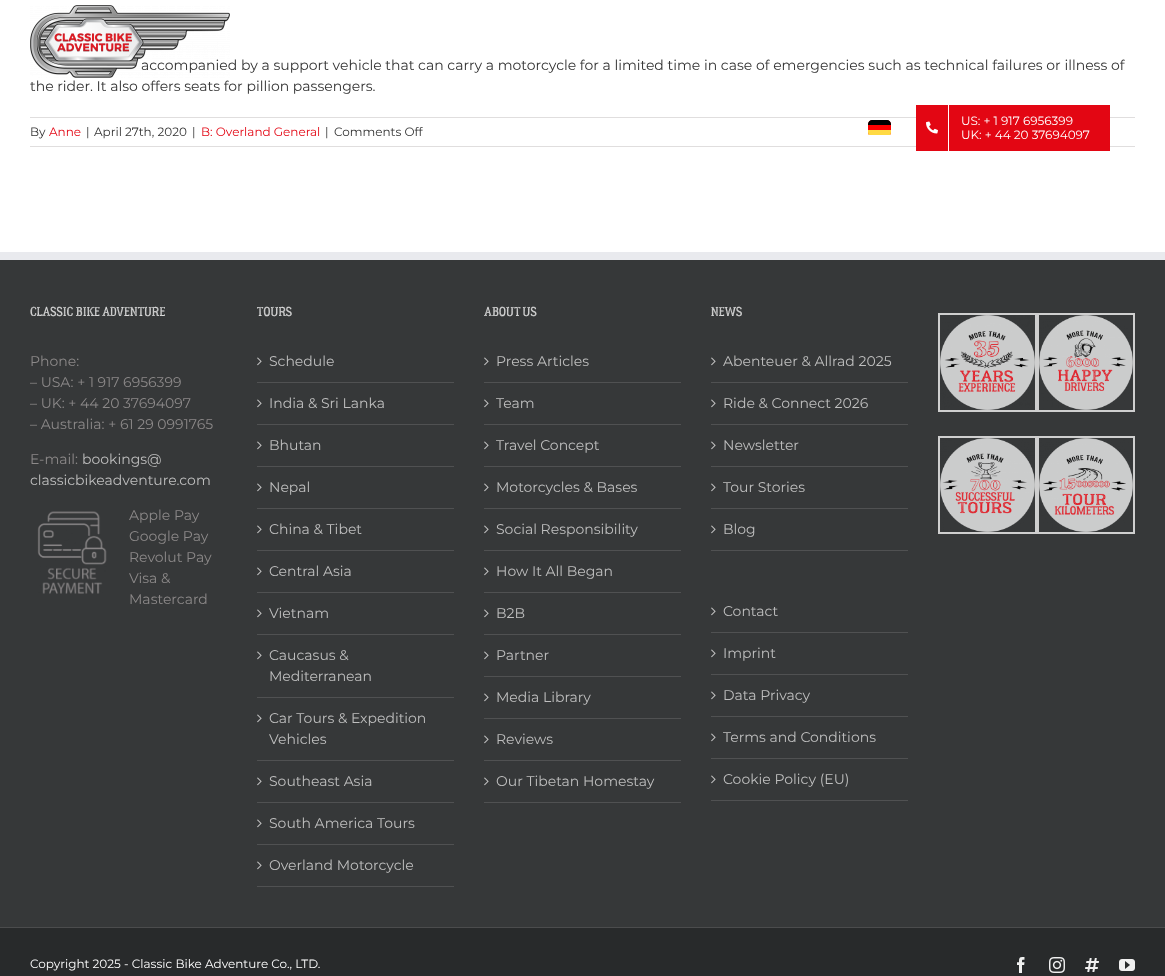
<svg xmlns="http://www.w3.org/2000/svg" width="1165" height="976">
<defs>
<clipPath id="clip1"><rect x="868" y="120" width="23" height="16" rx="4"/></clipPath>
</defs>
<rect width="100%" height="100%" fill="#fff"/>
<text x="141" y="70" style="font-family:Montserrat;font-size:14px;fill:#333">accompanied by a support vehicle that can carry a motorcycle for a limited time in case of emergencies such as technical failures or illness of</text>
<text x="30" y="91" style="font-family:Montserrat;font-size:14px;fill:#333">the rider. It also offers seats for pillion passengers.</text>
<rect x="30" y="117" width="1105" height="1" fill="#e0dede"/>
<rect x="30" y="146" width="1105" height="1" fill="#e0dede"/>
<text x="30" y="136" style="font-family:Montserrat;font-size:12px;fill:#333">By</text>
<text x="49" y="136" style="font-family:Montserrat;font-size:12px;fill:#e30613">Anne</text>
<text x="86" y="136" style="font-family:Montserrat;font-size:12px;fill:#333">|</text>
<text x="94" y="136" style="font-family:Montserrat;font-size:12px;fill:#333">April 27th, 2020</text>
<text x="192" y="136" style="font-family:Montserrat;font-size:12px;fill:#333">|</text>
<text x="201" y="136" style="font-family:Montserrat;font-size:12px;fill:#e30613">B: Overland General</text>
<text x="325" y="136" style="font-family:Montserrat;font-size:12px;fill:#333">|</text>
<text x="334" y="136" style="font-family:Montserrat;font-size:12px;fill:#333">Comments Off</text>
<image x="30" y="5" width="200" height="73" href="media/1.png"/>
<image x="372" y="129" width="1" height="2" href="media/2.png"/>
<g clip-path="url(#clip1)">
<path d="M872 120h15c2 0 4 2 4 4v11h-23v-11c0-2 2-4 4-4z" fill="#f00"/>
</g>
<path d="M872 120h15c2 0 4 2 4 4v1h-23v-1c0-2 2-4 4-4z" fill="#000"/>
<g clip-path="url(#clip1)">
<rect x="868" y="130" width="23" height="5" fill="#ffda44"/>
</g>
<rect x="916" y="105" width="194" height="46" fill="#e30613"/>
<rect x="948" y="105" width="1" height="46" fill="#fff"/>
<image x="926" y="121" width="12" height="13" href="media/3.png"/>
<text x="961" y="125" style="font-family:Montserrat;font-size:12px;fill:#fff">US: + 1 917 6956399</text>
<text x="961" y="139" style="font-family:Montserrat;font-size:12px;fill:#fff">UK: + 44 20 37694097</text>
<rect y="260" width="1165" height="667" fill="#363839"/>
<rect y="252" width="1165" height="8" fill="#e9eaee"/>
<text x="30" y="316" style="font-family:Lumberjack;font-size:13px;fill:#ddd">CLASSIC BIKE ADVENTURE</text>
<text x="30" y="366" style="font-family:Montserrat;font-size:14px;fill:#8c8989">Phone:</text>
<text x="30" y="387" style="font-family:Montserrat;font-size:14px;fill:#8c8989">– USA: + 1 917 6956399</text>
<text x="30" y="408" style="font-family:Montserrat;font-size:14px;fill:#8c8989">– UK: + 44 20 37694097</text>
<text x="30" y="429" style="font-family:Montserrat;font-size:14px;fill:#8c8989">– Australia: + 61 29 0991765</text>
<text x="30" y="464" style="font-family:Montserrat;font-size:14px;fill:#8c8989">E-mail:</text>
<text x="82" y="464" style="font-family:Montserrat;font-size:14px;fill:#bfbfbf">bookings@</text>
<text x="30" y="485" style="font-family:Montserrat;font-size:14px;fill:#bfbfbf">classicbikeadventure.com</text>
<image x="37" y="511" width="70" height="83" href="media/4.png"/>
<text x="129" y="520" style="font-family:Montserrat;font-size:14px;fill:#8c8989">Apple Pay</text>
<text x="129" y="541" style="font-family:Montserrat;font-size:14px;fill:#8c8989">Google Pay</text>
<text x="129" y="562" style="font-family:Montserrat;font-size:14px;fill:#8c8989">Revolut Pay</text>
<text x="129" y="583" style="font-family:Montserrat;font-size:14px;fill:#8c8989">Visa &amp;</text>
<text x="129" y="604" style="font-family:Montserrat;font-size:14px;fill:#8c8989">Mastercard</text>
<text x="257" y="316" style="font-family:Lumberjack;font-size:13px;fill:#ddd">TOURS</text>
<rect x="257" y="382" width="197" height="1" fill="#505152"/>
<image x="257" y="357" width="5" height="9" href="media/5.png"/>
<text x="269" y="366" style="font-family:Montserrat;font-size:14px;fill:#bfbfbf">Schedule</text>
<rect x="257" y="424" width="197" height="1" fill="#505152"/>
<image x="257" y="399" width="5" height="9" href="media/5.png"/>
<text x="269" y="408" style="font-family:Montserrat;font-size:14px;fill:#bfbfbf">India &amp; Sri Lanka</text>
<rect x="257" y="466" width="197" height="1" fill="#505152"/>
<image x="257" y="441" width="5" height="9" href="media/5.png"/>
<text x="269" y="450" style="font-family:Montserrat;font-size:14px;fill:#bfbfbf">Bhutan</text>
<rect x="257" y="508" width="197" height="1" fill="#505152"/>
<image x="257" y="483" width="5" height="9" href="media/5.png"/>
<text x="269" y="492" style="font-family:Montserrat;font-size:14px;fill:#bfbfbf">Nepal</text>
<rect x="257" y="550" width="197" height="1" fill="#505152"/>
<image x="257" y="525" width="5" height="9" href="media/5.png"/>
<text x="269" y="534" style="font-family:Montserrat;font-size:14px;fill:#bfbfbf">China &amp; Tibet</text>
<rect x="257" y="592" width="197" height="1" fill="#505152"/>
<image x="257" y="567" width="5" height="9" href="media/5.png"/>
<text x="269" y="576" style="font-family:Montserrat;font-size:14px;fill:#bfbfbf">Central Asia</text>
<rect x="257" y="634" width="197" height="1" fill="#505152"/>
<image x="257" y="609" width="5" height="9" href="media/5.png"/>
<text x="269" y="618" style="font-family:Montserrat;font-size:14px;fill:#bfbfbf">Vietnam</text>
<rect x="257" y="697" width="197" height="1" fill="#505152"/>
<image x="257" y="651" width="5" height="9" href="media/5.png"/>
<text x="269" y="660" style="font-family:Montserrat;font-size:14px;fill:#bfbfbf">Caucasus &amp;</text>
<text x="269" y="681" style="font-family:Montserrat;font-size:14px;fill:#bfbfbf">Mediterranean</text>
<rect x="257" y="760" width="197" height="1" fill="#505152"/>
<image x="257" y="714" width="5" height="9" href="media/5.png"/>
<text x="269" y="723" style="font-family:Montserrat;font-size:14px;fill:#bfbfbf">Car Tours &amp; Expedition</text>
<text x="269" y="744" style="font-family:Montserrat;font-size:14px;fill:#bfbfbf">Vehicles</text>
<rect x="257" y="802" width="197" height="1" fill="#505152"/>
<image x="257" y="777" width="5" height="9" href="media/5.png"/>
<text x="269" y="786" style="font-family:Montserrat;font-size:14px;fill:#bfbfbf">Southeast Asia</text>
<rect x="257" y="844" width="197" height="1" fill="#505152"/>
<image x="257" y="819" width="5" height="9" href="media/5.png"/>
<text x="269" y="828" style="font-family:Montserrat;font-size:14px;fill:#bfbfbf">South America Tours</text>
<rect x="257" y="886" width="197" height="1" fill="#505152"/>
<image x="257" y="861" width="5" height="9" href="media/5.png"/>
<text x="269" y="870" style="font-family:Montserrat;font-size:14px;fill:#bfbfbf">Overland Motorcycle</text>
<text x="484" y="316" style="font-family:Lumberjack;font-size:13px;fill:#ddd">ABOUT US</text>
<rect x="484" y="382" width="197" height="1" fill="#505152"/>
<image x="484" y="357" width="5" height="9" href="media/5.png"/>
<text x="496" y="366" style="font-family:Montserrat;font-size:14px;fill:#bfbfbf">Press Articles</text>
<rect x="484" y="424" width="197" height="1" fill="#505152"/>
<image x="484" y="399" width="5" height="9" href="media/5.png"/>
<text x="496" y="408" style="font-family:Montserrat;font-size:14px;fill:#bfbfbf">Team</text>
<rect x="484" y="466" width="197" height="1" fill="#505152"/>
<image x="484" y="441" width="5" height="9" href="media/5.png"/>
<text x="496" y="450" style="font-family:Montserrat;font-size:14px;fill:#bfbfbf">Travel Concept</text>
<rect x="484" y="508" width="197" height="1" fill="#505152"/>
<image x="484" y="483" width="5" height="9" href="media/5.png"/>
<text x="496" y="492" style="font-family:Montserrat;font-size:14px;fill:#bfbfbf">Motorcycles &amp; Bases</text>
<rect x="484" y="550" width="197" height="1" fill="#505152"/>
<image x="484" y="525" width="5" height="9" href="media/5.png"/>
<text x="496" y="534" style="font-family:Montserrat;font-size:14px;fill:#bfbfbf">Social Responsibility</text>
<rect x="484" y="592" width="197" height="1" fill="#505152"/>
<image x="484" y="567" width="5" height="9" href="media/5.png"/>
<text x="496" y="576" style="font-family:Montserrat;font-size:14px;fill:#bfbfbf">How It All Began</text>
<rect x="484" y="634" width="197" height="1" fill="#505152"/>
<image x="484" y="609" width="5" height="9" href="media/5.png"/>
<text x="496" y="618" style="font-family:Montserrat;font-size:14px;fill:#bfbfbf">B2B</text>
<rect x="484" y="676" width="197" height="1" fill="#505152"/>
<image x="484" y="651" width="5" height="9" href="media/5.png"/>
<text x="496" y="660" style="font-family:Montserrat;font-size:14px;fill:#bfbfbf">Partner</text>
<rect x="484" y="718" width="197" height="1" fill="#505152"/>
<image x="484" y="693" width="5" height="9" href="media/5.png"/>
<text x="496" y="702" style="font-family:Montserrat;font-size:14px;fill:#bfbfbf">Media Library</text>
<rect x="484" y="760" width="197" height="1" fill="#505152"/>
<image x="484" y="735" width="5" height="9" href="media/5.png"/>
<text x="496" y="744" style="font-family:Montserrat;font-size:14px;fill:#bfbfbf">Reviews</text>
<rect x="484" y="802" width="197" height="1" fill="#505152"/>
<image x="484" y="777" width="5" height="9" href="media/5.png"/>
<text x="496" y="786" style="font-family:Montserrat;font-size:14px;fill:#bfbfbf">Our Tibetan Homestay</text>
<text x="711" y="316" style="font-family:Lumberjack;font-size:13px;fill:#ddd">NEWS</text>
<rect x="711" y="382" width="197" height="1" fill="#505152"/>
<image x="711" y="357" width="5" height="9" href="media/5.png"/>
<text x="723" y="366" style="font-family:Montserrat;font-size:14px;fill:#bfbfbf">Abenteuer &amp; Allrad 2025</text>
<rect x="711" y="424" width="197" height="1" fill="#505152"/>
<image x="711" y="399" width="5" height="9" href="media/5.png"/>
<text x="723" y="408" style="font-family:Montserrat;font-size:14px;fill:#bfbfbf">Ride &amp; Connect 2026</text>
<rect x="711" y="466" width="197" height="1" fill="#505152"/>
<image x="711" y="441" width="5" height="9" href="media/5.png"/>
<text x="723" y="450" style="font-family:Montserrat;font-size:14px;fill:#bfbfbf">Newsletter</text>
<rect x="711" y="508" width="197" height="1" fill="#505152"/>
<image x="711" y="483" width="5" height="9" href="media/5.png"/>
<text x="723" y="492" style="font-family:Montserrat;font-size:14px;fill:#bfbfbf">Tour Stories</text>
<rect x="711" y="550" width="197" height="1" fill="#505152"/>
<image x="711" y="525" width="5" height="9" href="media/5.png"/>
<text x="723" y="534" style="font-family:Montserrat;font-size:14px;fill:#bfbfbf">Blog</text>
<rect x="711" y="632" width="197" height="1" fill="#505152"/>
<image x="711" y="607" width="5" height="9" href="media/5.png"/>
<text x="723" y="616" style="font-family:Montserrat;font-size:14px;fill:#bfbfbf">Contact</text>
<rect x="711" y="674" width="197" height="1" fill="#505152"/>
<image x="711" y="649" width="5" height="9" href="media/5.png"/>
<text x="723" y="658" style="font-family:Montserrat;font-size:14px;fill:#bfbfbf">Imprint</text>
<rect x="711" y="716" width="197" height="1" fill="#505152"/>
<image x="711" y="691" width="5" height="9" href="media/5.png"/>
<text x="723" y="700" style="font-family:Montserrat;font-size:14px;fill:#bfbfbf">Data Privacy</text>
<rect x="711" y="758" width="197" height="1" fill="#505152"/>
<image x="711" y="733" width="5" height="9" href="media/5.png"/>
<text x="723" y="742" style="font-family:Montserrat;font-size:14px;fill:#bfbfbf">Terms and Conditions</text>
<rect x="711" y="800" width="197" height="1" fill="#505152"/>
<image x="711" y="775" width="5" height="9" href="media/5.png"/>
<text x="723" y="784" style="font-family:Montserrat;font-size:14px;fill:#bfbfbf">Cookie Policy (EU)</text>
<rect x="939" y="314" width="97" height="97" fill="none" stroke="#cfcfcf" stroke-width="2"/>
<image x="940" y="315" width="95" height="95" href="media/6.png"/>
<rect x="1038" y="314" width="96" height="97" fill="none" stroke="#cfcfcf" stroke-width="2"/>
<image x="1039" y="315" width="94" height="95" href="media/7.png"/>
<rect x="939" y="437" width="97" height="96" fill="none" stroke="#cfcfcf" stroke-width="2"/>
<image x="940" y="438" width="95" height="94" href="media/8.png"/>
<rect x="1038" y="437" width="96" height="96" fill="none" stroke="#cfcfcf" stroke-width="2"/>
<image x="1039" y="438" width="94" height="94" href="media/9.png"/>
<rect y="928" width="1165" height="48" fill="#282a2b"/>
<rect y="927" width="1165" height="1" fill="#4b4c4d"/>
<text x="30" y="968" style="font-family:Montserrat;font-size:12px;fill:#fff">Copyright 2025 - Classic Bike Adventure Co., LTD.</text>
<image x="1017" y="957" width="8" height="16" href="media/10.png"/>
<image x="1049" y="957" width="16" height="16" href="media/11.png"/>
<image x="1085" y="958" width="14" height="14" href="media/12.png"/>
<image x="1119" y="959" width="16" height="12" href="media/13.png"/>
</svg>
